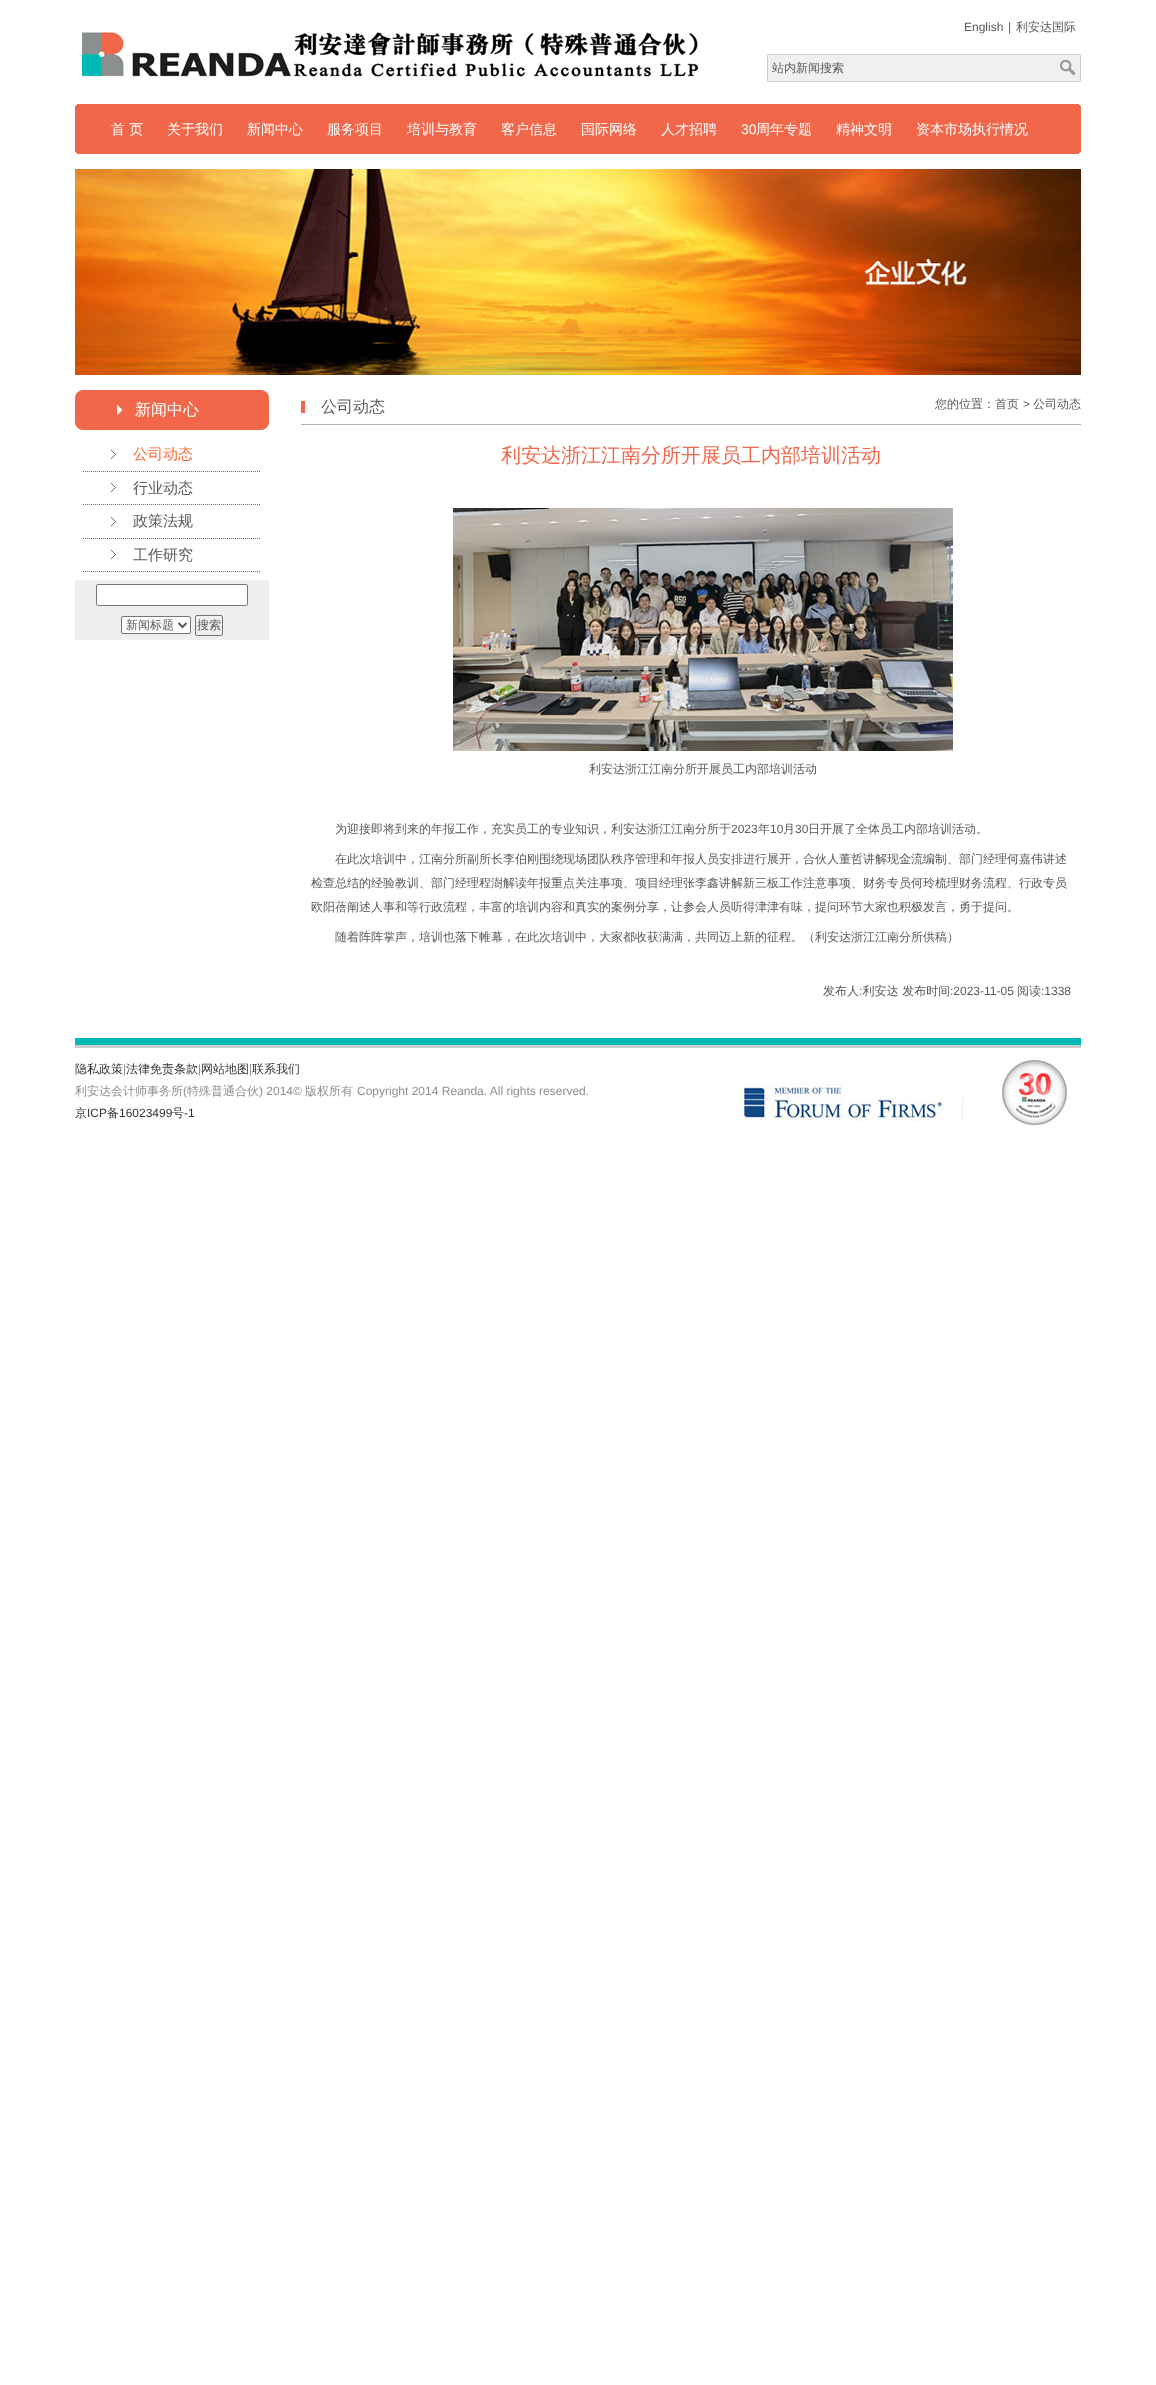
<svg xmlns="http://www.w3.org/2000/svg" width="1156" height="2385">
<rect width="100%" height="100%" fill="#fff"/>
<image x="82" y="32" width="617" height="45" href="media/1.png"/>
<text x="964" y="31" style="font-family:Liberation Sans;font-size:12px;fill:#5a5a5a">English</text>
<text x="1008" y="31" style="font-family:Liberation Sans;font-size:12px;fill:#5a5a5a">|</text>
<text x="1016" y="31" style="font-family:WenQuanYi Zen Hei;font-size:12px;font-weight:500;fill:#5a5a5a">利安达国际</text>
<image x="767" y="54" width="314" height="28" href="media/2.png"/>
<text x="772" y="72" style="font-family:WenQuanYi Zen Hei;font-size:12px;font-weight:500;fill:#5a5a5a">站内新闻搜索</text>
<rect x="77" y="104" width="1002" height="50" fill="#f2674a"/>
<image x="75" y="104" width="2" height="50" href="media/3.png"/>
<image x="1079" y="104" width="2" height="50" href="media/4.png"/>
<text x="111" y="134" style="font-family:WenQuanYi Zen Hei;font-size:14px;font-weight:500;fill:#fff">首 页</text>
<text x="167" y="134" style="font-family:WenQuanYi Zen Hei;font-size:14px;font-weight:500;fill:#fff">关于我们</text>
<text x="247" y="134" style="font-family:WenQuanYi Zen Hei;font-size:14px;font-weight:500;fill:#fff">新闻中心</text>
<text x="327" y="134" style="font-family:WenQuanYi Zen Hei;font-size:14px;font-weight:500;fill:#fff">服务项目</text>
<text x="407" y="134" style="font-family:WenQuanYi Zen Hei;font-size:14px;font-weight:500;fill:#fff">培训与教育</text>
<text x="501" y="134" style="font-family:WenQuanYi Zen Hei;font-size:14px;font-weight:500;fill:#fff">客户信息</text>
<text x="581" y="134" style="font-family:WenQuanYi Zen Hei;font-size:14px;font-weight:500;fill:#fff">国际网络</text>
<text x="661" y="134" style="font-family:WenQuanYi Zen Hei;font-size:14px;font-weight:500;fill:#fff">人才招聘</text>
<text x="741" y="134" style="font-family:Liberation Sans;font-size:14px;fill:#fff">30</text>
<text x="756" y="134" style="font-family:WenQuanYi Zen Hei;font-size:14px;font-weight:500;fill:#fff">周年专题</text>
<text x="836" y="134" style="font-family:WenQuanYi Zen Hei;font-size:14px;font-weight:500;fill:#fff">精神文明</text>
<text x="916" y="134" style="font-family:WenQuanYi Zen Hei;font-size:14px;font-weight:500;fill:#fff">资本市场执行情况</text>
<image x="75" y="169" width="1006" height="206" href="media/5.png"/>
<image x="75" y="390" width="194" height="40" href="media/6.png"/>
<text x="135" y="415" style="font-family:WenQuanYi Zen Hei;font-size:16px;font-weight:500;fill:#fff">新闻中心</text>
<image x="111" y="450" width="5" height="9" href="media/7.png"/>
<path d="M83 471.5h178" fill="none" stroke="#707070" stroke-dasharray="1 1"/>
<text x="133" y="459" style="font-family:WenQuanYi Zen Hei;font-size:15px;font-weight:500;fill:#ff6634">公司动态</text>
<image x="111" y="483" width="5" height="9" href="media/7.png"/>
<path d="M83 504.5h178" fill="none" stroke="#707070" stroke-dasharray="1 1"/>
<text x="133" y="493" style="font-family:WenQuanYi Zen Hei;font-size:15px;font-weight:500;fill:#5a5a5a">行业动态</text>
<image x="111" y="517" width="5" height="9" href="media/7.png"/>
<path d="M83 538.5h178" fill="none" stroke="#707070" stroke-dasharray="1 1"/>
<text x="133" y="526" style="font-family:WenQuanYi Zen Hei;font-size:15px;font-weight:500;fill:#5a5a5a">政策法规</text>
<image x="111" y="550" width="5" height="9" href="media/7.png"/>
<path d="M83 571.5h178" fill="none" stroke="#707070" stroke-dasharray="1 1"/>
<text x="133" y="560" style="font-family:WenQuanYi Zen Hei;font-size:15px;font-weight:500;fill:#5a5a5a">工作研究</text>
<rect x="75" y="580" width="194" height="60" fill="#efefef"/>
<rect x="96.5" y="584.5" width="151" height="21" rx="1.5" fill="#fff" stroke="#767676"/>
<rect x="121.5" y="616.5" width="69" height="17" rx="1.5" fill="#fff" stroke="#767676"/>
<path d="M178.5 623l4 4l4-4" fill="none" stroke="#5a5a5a" stroke-width="2"/>
<text x="126" y="629" style="font-family:WenQuanYi Zen Hei;font-size:12px;font-weight:500;fill:#5a5a5a">新闻标题</text>
<rect x="195.5" y="615.5" width="27" height="20" rx="1.5" fill="none" stroke="#767676"/>
<text x="197" y="629" style="font-family:WenQuanYi Zen Hei;font-size:12px;font-weight:500;fill:#5a5a5a">搜索</text>
<rect x="301" y="424" width="780" height="1" fill="#b2b2b2"/>
<image x="301" y="401" width="4" height="12" href="media/8.png"/>
<text x="321" y="412" style="font-family:WenQuanYi Zen Hei;font-size:16px;font-weight:500;fill:#5a5a5a">公司动态</text>
<text x="935" y="408" style="font-family:WenQuanYi Zen Hei;font-size:12px;font-weight:500;fill:#5a5a5a">您的位置：首页</text>
<text x="1023" y="408" style="font-family:Liberation Sans;font-size:12px;fill:#5a5a5a">&gt;</text>
<text x="1033" y="408" style="font-family:WenQuanYi Zen Hei;font-size:12px;font-weight:500;fill:#5a5a5a">公司动态</text>
<text x="501" y="462" style="font-family:WenQuanYi Zen Hei;font-size:20px;font-weight:500;fill:#f2674a">利安达浙江江南分所开展员工内部培训活动</text>
<image x="453" y="508" width="500" height="243" href="media/9.png"/>
<text x="589" y="773" style="font-family:WenQuanYi Zen Hei;font-size:12px;font-weight:500;fill:#5a5a5a">利安达浙江江南分所开展员工内部培训活动</text>
<text x="335" y="833" style="font-family:WenQuanYi Zen Hei;font-size:12px;font-weight:500;fill:#5a5a5a">为迎接即将到来的年报工作，充实员工的专业知识，利安达浙江江南分所于</text>
<text x="731" y="833" style="font-family:Liberation Sans;font-size:12px;fill:#5a5a5a">2023</text>
<text x="758" y="833" style="font-family:WenQuanYi Zen Hei;font-size:12px;font-weight:500;fill:#5a5a5a">年</text>
<text x="770" y="833" style="font-family:Liberation Sans;font-size:12px;fill:#5a5a5a">10</text>
<text x="783" y="833" style="font-family:WenQuanYi Zen Hei;font-size:12px;font-weight:500;fill:#5a5a5a">月</text>
<text x="795" y="833" style="font-family:Liberation Sans;font-size:12px;fill:#5a5a5a">30</text>
<text x="808" y="833" style="font-family:WenQuanYi Zen Hei;font-size:12px;font-weight:500;fill:#5a5a5a">日开展了全体员工内部培训活动。</text>
<text x="335" y="863" style="font-family:WenQuanYi Zen Hei;font-size:12px;font-weight:500;fill:#5a5a5a">在此次培训中，江南分所副所长李伯刚围绕现场团队秩序管理和年报人员安排进行展开，合伙人董哲讲解现金流编制、部门经理何嘉伟讲述</text>
<text x="311" y="887" style="font-family:WenQuanYi Zen Hei;font-size:12px;font-weight:500;fill:#5a5a5a">检查总结的经验教训、部门经理程澍解读年报重点关注事项、项目经理张李鑫讲解新三板工作注意事项、财务专员何玲梳理财务流程、行政专员</text>
<text x="311" y="911" style="font-family:WenQuanYi Zen Hei;font-size:12px;font-weight:500;fill:#5a5a5a">欧阳蓓阐述人事和等行政流程，丰富的培训内容和真实的案例分享，让参会人员听得津津有味，提问环节大家也积极发言，勇于提问。</text>
<text x="335" y="941" style="font-family:WenQuanYi Zen Hei;font-size:12px;font-weight:500;fill:#5a5a5a">随着阵阵掌声，培训也落下帷幕，在此次培训中，大家都收获满满，共同迈上新的征程。（利安达浙江江南分所供稿）</text>
<text x="823" y="995" style="font-family:WenQuanYi Zen Hei;font-size:12px;font-weight:500;fill:#5a5a5a">发布人 利安达 发布时间</text>
<text x="950" y="995" style="font-family:Liberation Sans;font-size:12px;fill:#5a5a5a">:2023-11-05</text>
<text x="1017" y="995" style="font-family:WenQuanYi Zen Hei;font-size:12px;font-weight:500;fill:#5a5a5a">阅读</text>
<text x="1041" y="995" style="font-family:Liberation Sans;font-size:12px;fill:#5a5a5a">:1338</text>
<text x="859" y="995" style="font-family:Liberation Sans;font-size:12px;fill:#5a5a5a">:</text>
<image x="75" y="1038" width="1006" height="10" href="media/10.png"/>
<text x="75" y="1073" style="font-family:WenQuanYi Zen Hei;font-size:12px;font-weight:500;fill:#333">隐私政策</text>
<text x="123" y="1073" style="font-family:Liberation Sans;font-size:12px;fill:#8d8e90">|</text>
<text x="126" y="1073" style="font-family:WenQuanYi Zen Hei;font-size:12px;font-weight:500;fill:#333">法律免责条款</text>
<text x="198" y="1073" style="font-family:Liberation Sans;font-size:12px;fill:#8d8e90">|</text>
<text x="201" y="1073" style="font-family:WenQuanYi Zen Hei;font-size:12px;font-weight:500;fill:#333">网站地图</text>
<text x="249" y="1073" style="font-family:Liberation Sans;font-size:12px;fill:#8d8e90">|</text>
<text x="252" y="1073" style="font-family:WenQuanYi Zen Hei;font-size:12px;font-weight:500;fill:#333">联系我们</text>
<image x="739" y="1059" width="328" height="66" href="media/11.png"/>
<text x="75" y="1095" style="font-family:WenQuanYi Zen Hei;font-size:12px;font-weight:500;fill:#8d8e90">利安达会计师事务所</text>
<text x="183" y="1095" style="font-family:Liberation Sans;font-size:12px;fill:#8d8e90">(</text>
<text x="187" y="1095" style="font-family:WenQuanYi Zen Hei;font-size:12px;font-weight:500;fill:#8d8e90">特殊普通合伙</text>
<text x="259" y="1095" style="font-family:Liberation Sans;font-size:12px;fill:#8d8e90">) 2014©</text>
<text x="305" y="1095" style="font-family:WenQuanYi Zen Hei;font-size:12px;font-weight:500;fill:#8d8e90">版权所有</text>
<text x="357" y="1095" style="font-family:Liberation Sans;font-size:12px;fill:#8d8e90">Copyright 2014 Reanda. All rights reserved.</text>
<text x="75" y="1117" style="font-family:WenQuanYi Zen Hei;font-size:12px;font-weight:500;fill:#333">京</text>
<text x="87" y="1117" style="font-family:Liberation Sans;font-size:12px;fill:#333">ICP</text>
<text x="107" y="1117" style="font-family:WenQuanYi Zen Hei;font-size:12px;font-weight:500;fill:#333">备</text>
<text x="119" y="1117" style="font-family:Liberation Sans;font-size:12px;fill:#333">16023499</text>
<text x="172" y="1117" style="font-family:WenQuanYi Zen Hei;font-size:12px;font-weight:500;fill:#333">号</text>
<text x="184" y="1117" style="font-family:Liberation Sans;font-size:12px;fill:#333">-1</text>
</svg>
